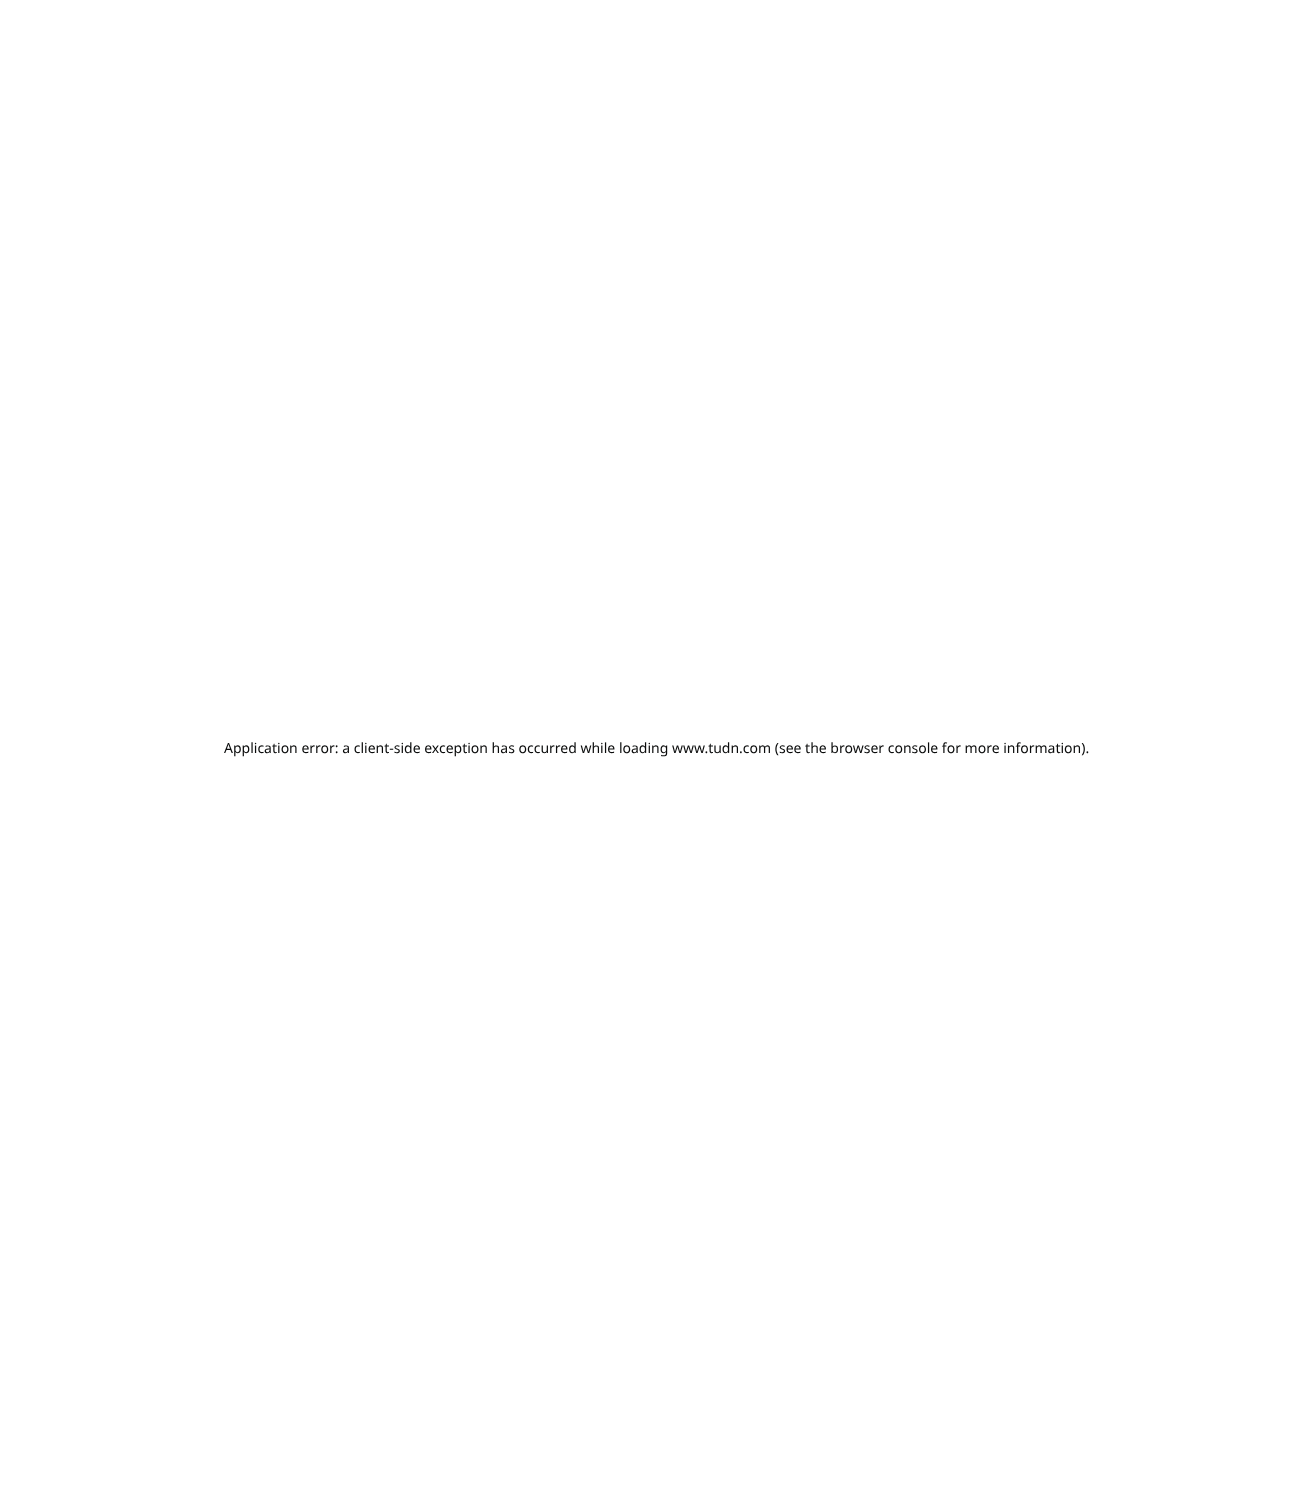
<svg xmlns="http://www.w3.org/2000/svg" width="1313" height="1496">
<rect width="100%" height="100%" fill="#fff"/>
<text x="224" y="753" style="font-family:Noto Sans;font-size:14px;fill:#0a0b0b">Application error: a client-side exception has occurred while loading www.tudn.com (see the browser console for more information).</text>
</svg>
